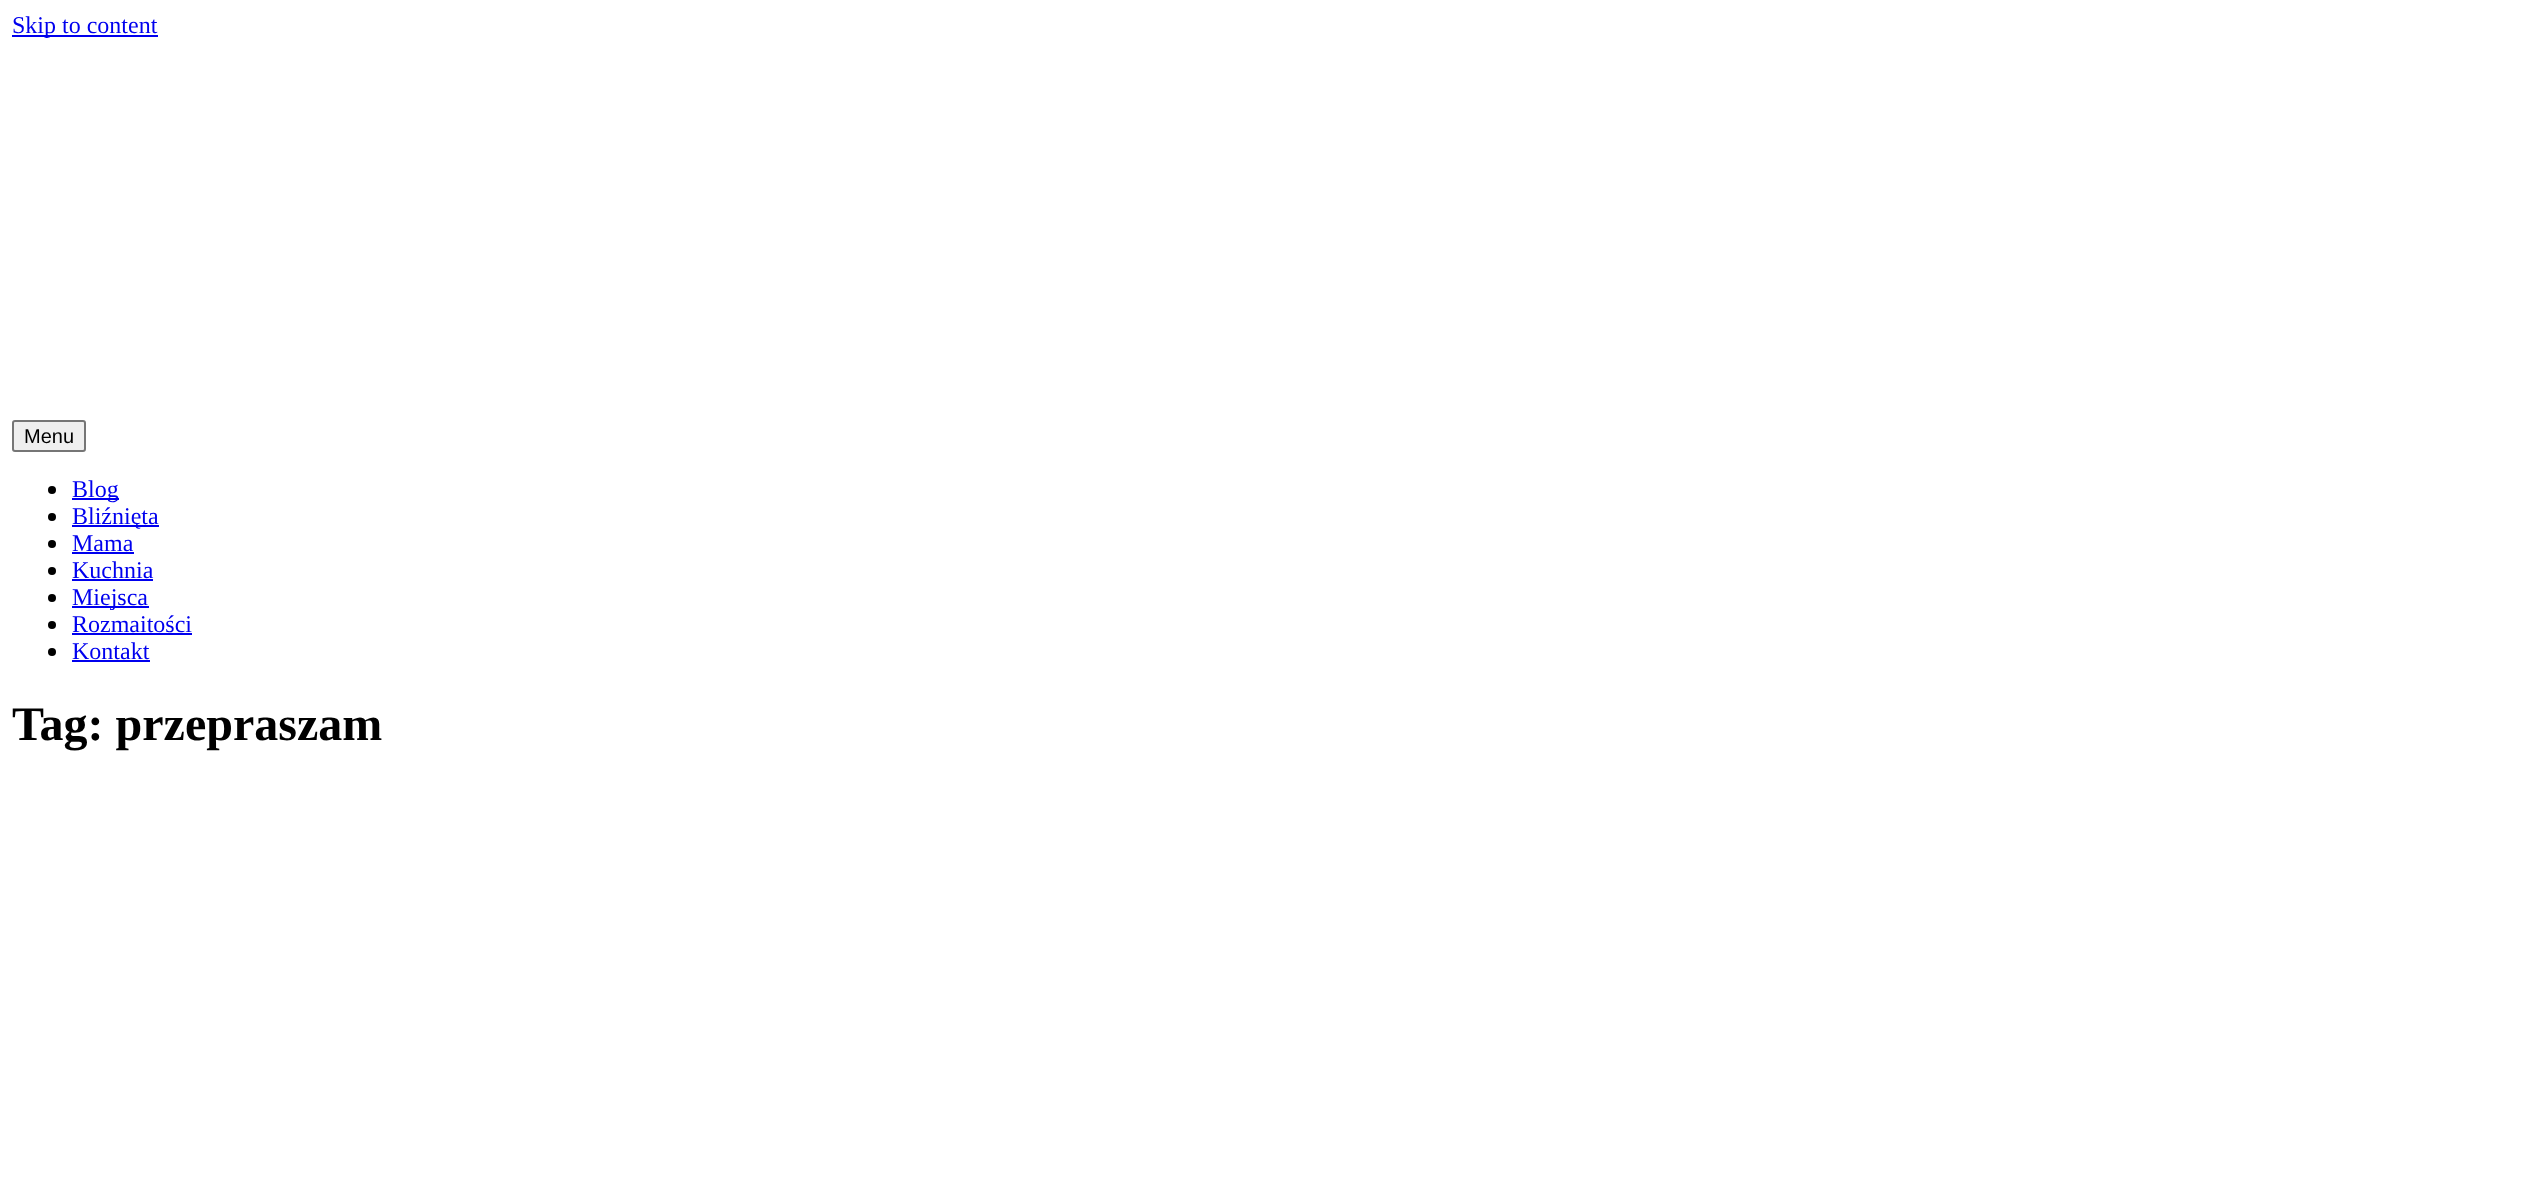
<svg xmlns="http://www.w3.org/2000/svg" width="2540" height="1196">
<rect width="100%" height="100%" fill="#fff"/>
<rect x="12" y="35" width="146" height="2" fill="#00e"/>
<text x="12" y="33" style="font-family:Liberation Serif;font-size:24px;fill:#00e">Skip to content</text>
<rect x="13" y="421" width="72" height="30" rx="2" fill="#efefef" stroke="#767676" stroke-width="2"/>
<text x="24" y="443" style="font-family:Liberation Sans;font-size:20px;fill:#000">Menu</text>
<circle cx="52" cy="490" r="4" fill="#000"/>
<rect x="72" y="498" width="47" height="2" fill="#00e"/>
<text x="72" y="497" style="font-family:Liberation Serif;font-size:24px;fill:#00e">Blog</text>
<circle cx="52" cy="517" r="4" fill="#000"/>
<rect x="72" y="525" width="87" height="2" fill="#00e"/>
<text x="72" y="524" style="font-family:Liberation Serif;font-size:24px;fill:#00e">Bliźnięta</text>
<circle cx="52" cy="544" r="4" fill="#000"/>
<text x="72" y="551" style="font-family:Liberation Serif;font-size:24px;fill:#00e">Mama</text>
<rect x="72" y="552" width="62" height="2" fill="#00e"/>
<circle cx="52" cy="571" r="4" fill="#000"/>
<text x="72" y="578" style="font-family:Liberation Serif;font-size:24px;fill:#00e">Kuchnia</text>
<rect x="72" y="579" width="81" height="2" fill="#00e"/>
<circle cx="52" cy="598" r="4" fill="#000"/>
<rect x="72" y="606" width="77" height="2" fill="#00e"/>
<text x="72" y="605" style="font-family:Liberation Serif;font-size:24px;fill:#00e">Miejsca</text>
<circle cx="52" cy="625" r="4" fill="#000"/>
<text x="72" y="632" style="font-family:Liberation Serif;font-size:24px;fill:#00e">Rozmaitości</text>
<rect x="72" y="633" width="120" height="2" fill="#00e"/>
<circle cx="52" cy="652" r="4" fill="#000"/>
<text x="72" y="659" style="font-family:Liberation Serif;font-size:24px;fill:#00e">Kontakt</text>
<rect x="72" y="660" width="78" height="2" fill="#00e"/>
<text x="12" y="740" style="font-family:Liberation Serif;font-size:48px;font-weight:bold;fill:#000">Tag: przepraszam</text>
</svg>
